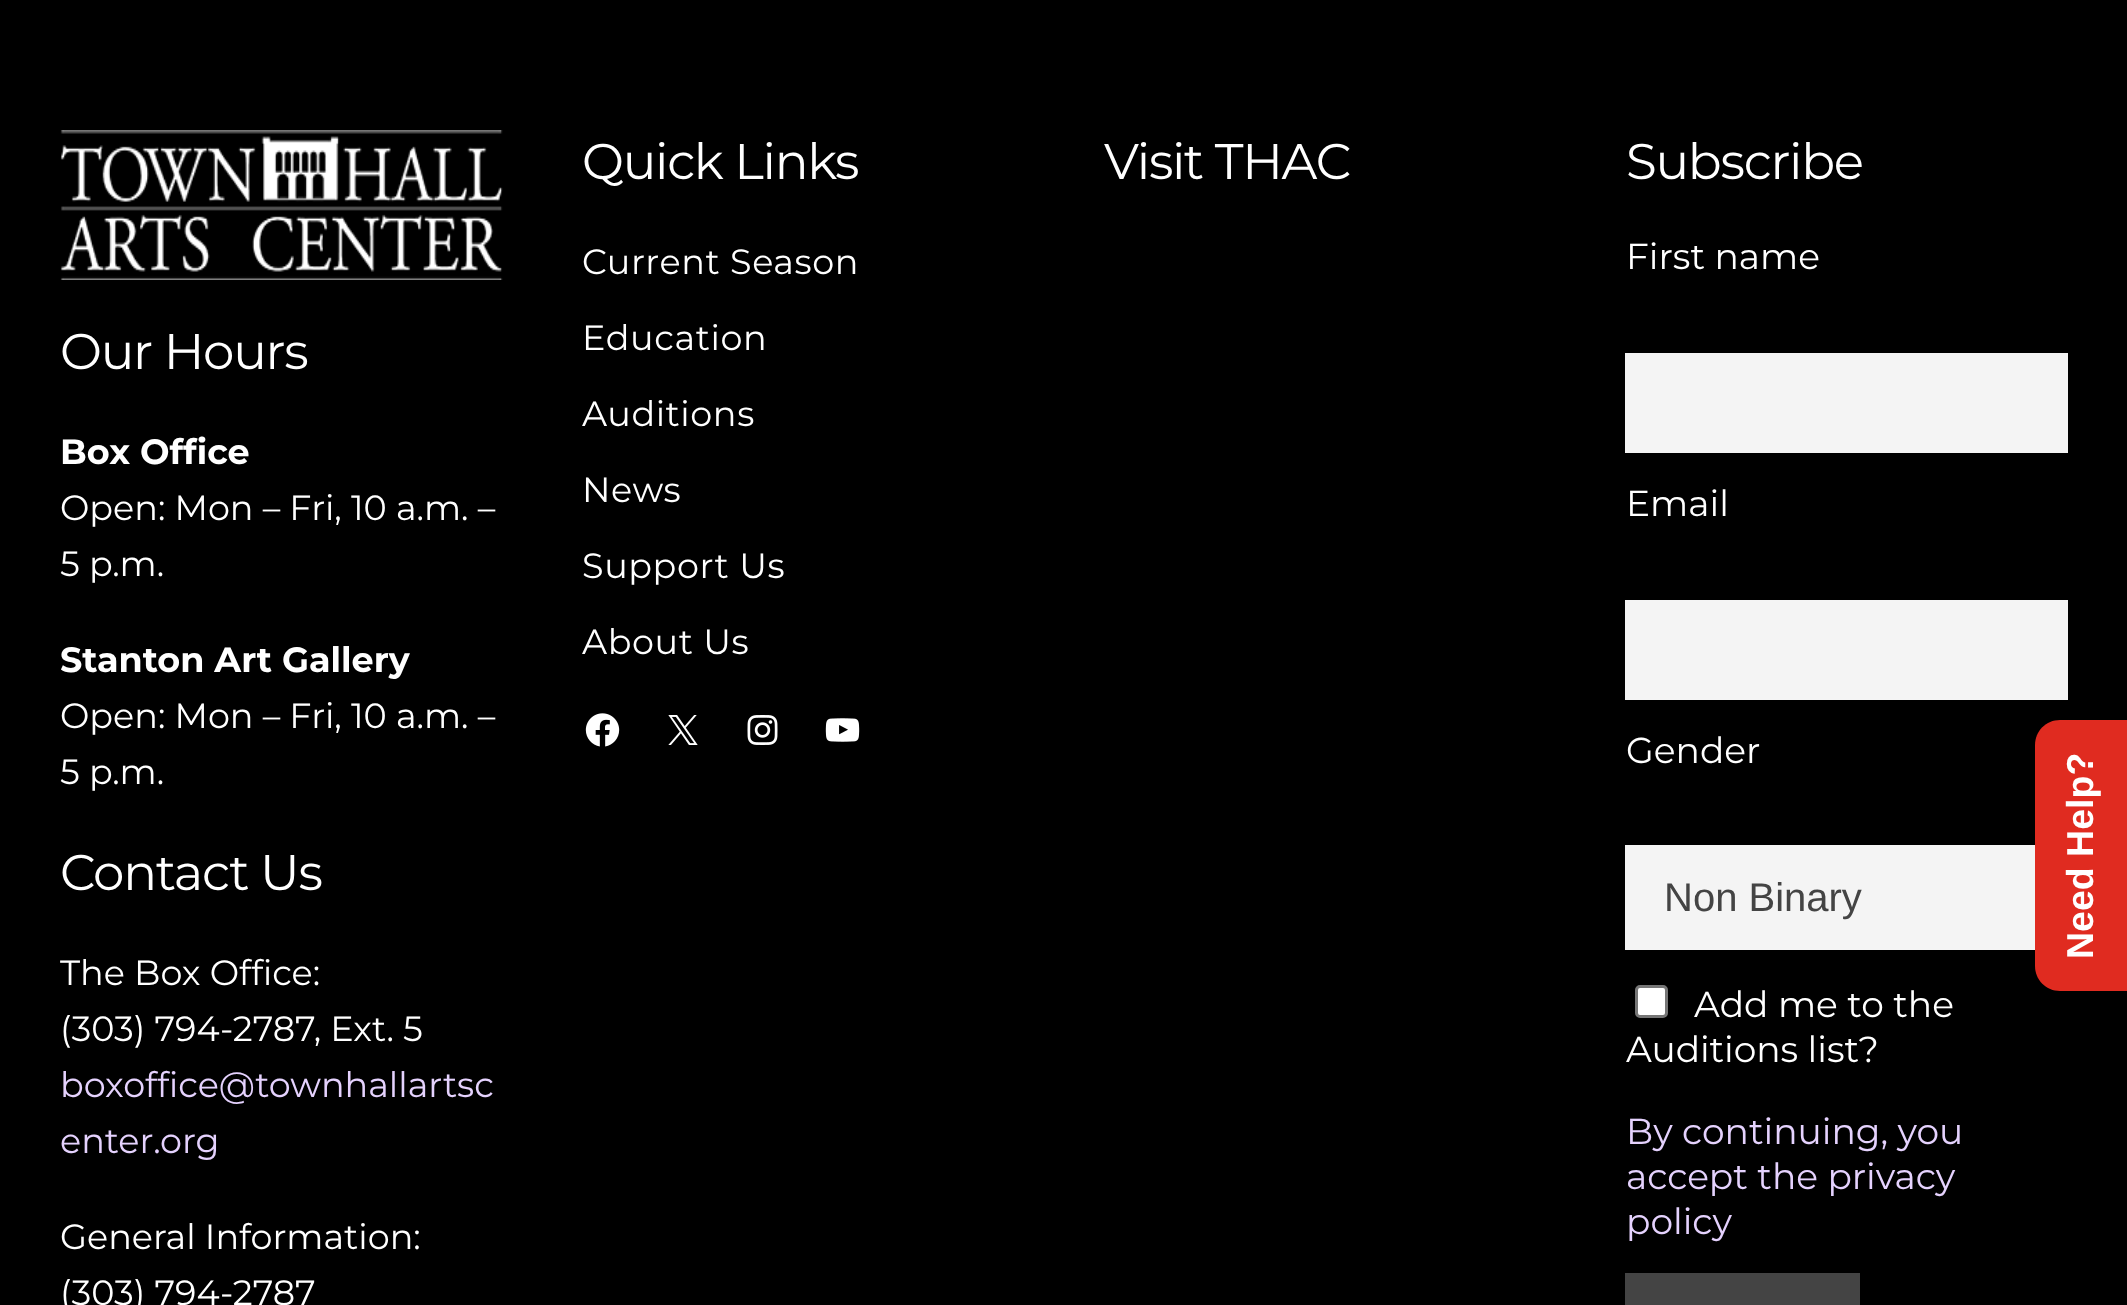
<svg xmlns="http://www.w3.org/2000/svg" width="2127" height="1305">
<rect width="100%" height="100%" fill="#000"/>
<image x="60" y="130" width="443" height="150" href="media/1.png"/>
<text x="60" y="369" style="font-family:Montserrat;font-size:50px;letter-spacing:-1.25px;fill:#fff">Our Hours</text>
<text x="60" y="464" style="font-family:Montserrat;font-size:35px;font-weight:bold;fill:#fff">Box Office</text>
<text x="60" y="520" style="font-family:Montserrat;font-size:35px;fill:#fff">Open: Mon – Fri, 10 a.m. –</text>
<text x="60" y="576" style="font-family:Montserrat;font-size:35px;fill:#fff">5 p.m.</text>
<text x="60" y="672" style="font-family:Montserrat;font-size:35px;font-weight:bold;fill:#fff">Stanton Art Gallery</text>
<text x="60" y="728" style="font-family:Montserrat;font-size:35px;fill:#fff">Open: Mon – Fri, 10 a.m. –</text>
<text x="60" y="784" style="font-family:Montserrat;font-size:35px;fill:#fff">5 p.m.</text>
<text x="60" y="890" style="font-family:Montserrat;font-size:50px;letter-spacing:-1.25px;fill:#fff">Contact Us</text>
<text x="60" y="985" style="font-family:Montserrat;font-size:35px;fill:#fff">The Box Office:</text>
<text x="60" y="1041" style="font-family:Montserrat;font-size:35px;fill:#fff">(303) 794-2787, Ext. 5</text>
<text x="60" y="1097" style="font-family:Montserrat;font-size:35px;fill:#e5d2fe">boxoffice@townhallartsc</text>
<text x="60" y="1153" style="font-family:Montserrat;font-size:35px;fill:#e5d2fe">enter.org</text>
<text x="60" y="1249" style="font-family:Montserrat;font-size:35px;fill:#fff">General Information:</text>
<text x="60" y="1305" style="font-family:Montserrat;font-size:35px;fill:#fff">(303) 794-2787</text>
<text x="582" y="179" style="font-family:Montserrat;font-size:50px;letter-spacing:-1.25px;fill:#fff">Quick Links</text>
<text x="582" y="274" style="font-family:Montserrat;font-size:35px;letter-spacing:0.6px;fill:#fff">Current Season</text>
<text x="582" y="350" style="font-family:Montserrat;font-size:35px;letter-spacing:0.6px;fill:#fff">Education</text>
<text x="582" y="426" style="font-family:Montserrat;font-size:35px;letter-spacing:0.6px;fill:#fff">Auditions</text>
<text x="582" y="502" style="font-family:Montserrat;font-size:35px;letter-spacing:0.6px;fill:#fff">News</text>
<text x="582" y="578" style="font-family:Montserrat;font-size:35px;letter-spacing:0.6px;fill:#fff">Support Us</text>
<text x="582" y="654" style="font-family:Montserrat;font-size:35px;letter-spacing:0.6px;fill:#fff">About Us</text>
<image x="585" y="713" width="35" height="34" href="media/2.png"/>
<image x="668" y="715" width="30" height="30" href="media/3.png"/>
<image x="747" y="715" width="31" height="30" href="media/4.png"/>
<image x="825" y="718" width="35" height="24" href="media/5.png"/>
<text x="1104" y="179" style="font-family:Montserrat;font-size:50px;letter-spacing:-1.25px;fill:#fff">Visit THAC</text>
<text x="1626" y="179" style="font-family:Montserrat;font-size:50px;letter-spacing:-1.25px;fill:#fff">Subscribe</text>
<text x="1626" y="269" style="font-family:Montserrat;font-size:36px;fill:#fff">First name</text>
<rect x="1625" y="353" width="443" height="100" fill="#f4f4f4"/>
<text x="1626" y="516" style="font-family:Montserrat;font-size:36px;fill:#fff">Email</text>
<rect x="1625" y="600" width="443" height="100" fill="#f4f4f4"/>
<text x="1626" y="763" style="font-family:Montserrat;font-size:36px;fill:#fff">Gender</text>
<rect x="1625" y="845" width="410" height="105" fill="#f4f4f4"/>
<text x="1664" y="911" style="font-family:Liberation Sans;font-size:40px;fill:#444">Non Binary</text>
<rect x="1636.5" y="986.5" width="30" height="30" rx="3.5" fill="#fff" stroke="#767676" stroke-width="3"/>
<text x="1694" y="1017" style="font-family:Montserrat;font-size:36px;fill:#fff">Add me to the</text>
<text x="1626" y="1062" style="font-family:Montserrat;font-size:36px;fill:#fff">Auditions list?</text>
<text x="1626" y="1144" style="font-family:Montserrat;font-size:36px;fill:#e5d2fe">By continuing, you</text>
<text x="1626" y="1189" style="font-family:Montserrat;font-size:36px;fill:#e5d2fe">accept the privacy</text>
<text x="1626" y="1234" style="font-family:Montserrat;font-size:36px;fill:#e5d2fe">policy</text>
<rect x="1625" y="1273" width="235" height="32" fill="#444"/>
<path d="M2035 966v-221c0-14 11-25 25-25h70v271h-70c-14 0-25-11-25-25z" fill="#e02b20"/>
<text x="2093" y="959" transform="rotate(-90 2093 959)" style="font-family:Liberation Sans;font-size:37.5px;font-weight:bold;fill:#fff">Need Help?</text>
</svg>
